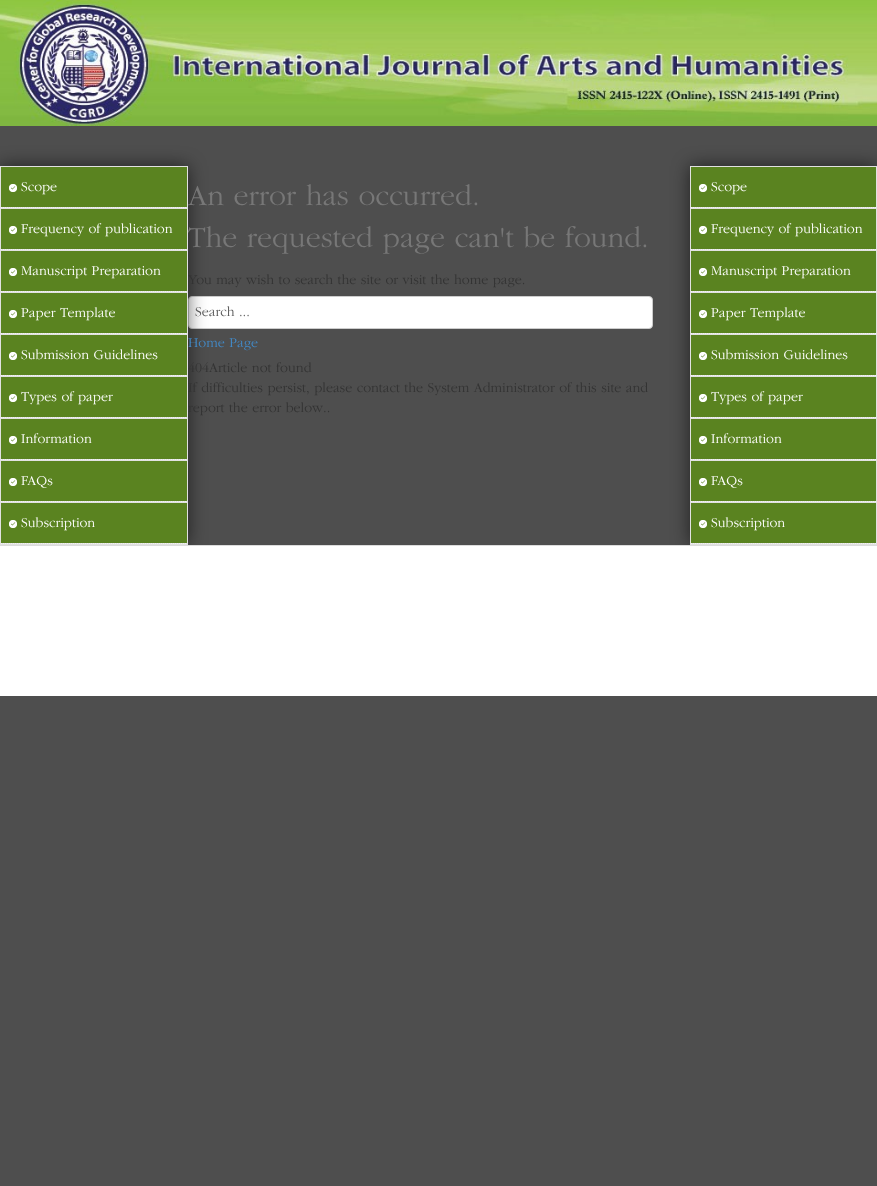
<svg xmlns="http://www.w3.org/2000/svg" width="877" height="1186">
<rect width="100%" height="100%" fill="#4e4e4e"/>
<image x="0" y="0" width="877" height="126" href="media/1.png"/>
<rect x="188.5" y="296.5" width="464" height="32" rx="3.5" fill="#fff" stroke="#ccc"/>
<rect y="166" width="188" height="379" fill="#00000096" filter="blur(9px)"/>
<text x="188" y="205" style="font-family:Garamond;font-size:30px;fill:#777">An error has occurred.</text>
<text x="188" y="247" style="font-family:Garamond;font-size:30px;fill:#777">The requested page can't be found.</text>
<text x="188" y="284" style="font-family:Garamond;font-size:14px;fill:#333">You may wish to search the site or visit the home page.</text>
<rect y="166" width="188" height="379" fill="#e1e1e1"/>
<rect x="1" y="167" width="186" height="40" fill="#5a8320"/>
<path d="M1 207.5h186" fill="none" stroke="#f3f3f3" stroke-dasharray="1 1"/>
<image x="9" y="184" width="8" height="8" href="media/2.png"/>
<text x="21" y="191" style="font-family:Garamond;font-size:14px;fill:#fff">Scope</text>
<rect x="1" y="209" width="186" height="40" fill="#5a8320"/>
<path d="M1 249.5h186" fill="none" stroke="#f3f3f3" stroke-dasharray="1 1"/>
<image x="9" y="226" width="8" height="8" href="media/2.png"/>
<text x="21" y="233" style="font-family:Garamond;font-size:14px;fill:#fff">Frequency of publication</text>
<rect x="1" y="251" width="186" height="40" fill="#5a8320"/>
<path d="M1 291.5h186" fill="none" stroke="#f3f3f3" stroke-dasharray="1 1"/>
<image x="9" y="268" width="8" height="8" href="media/2.png"/>
<text x="21" y="275" style="font-family:Garamond;font-size:14px;fill:#fff">Manuscript Preparation</text>
<rect x="1" y="293" width="186" height="40" fill="#5a8320"/>
<path d="M1 333.5h186" fill="none" stroke="#f3f3f3" stroke-dasharray="1 1"/>
<image x="9" y="310" width="8" height="8" href="media/2.png"/>
<text x="21" y="317" style="font-family:Garamond;font-size:14px;fill:#fff">Paper Template</text>
<rect x="1" y="335" width="186" height="40" fill="#5a8320"/>
<path d="M1 375.5h186" fill="none" stroke="#f3f3f3" stroke-dasharray="1 1"/>
<image x="9" y="352" width="8" height="8" href="media/2.png"/>
<text x="21" y="359" style="font-family:Garamond;font-size:14px;fill:#fff">Submission Guidelines</text>
<rect x="1" y="377" width="186" height="40" fill="#5a8320"/>
<path d="M1 417.5h186" fill="none" stroke="#f3f3f3" stroke-dasharray="1 1"/>
<image x="9" y="394" width="8" height="8" href="media/2.png"/>
<text x="21" y="401" style="font-family:Garamond;font-size:14px;fill:#fff">Types of paper</text>
<rect x="1" y="419" width="186" height="40" fill="#5a8320"/>
<path d="M1 459.5h186" fill="none" stroke="#f3f3f3" stroke-dasharray="1 1"/>
<image x="9" y="436" width="8" height="8" href="media/2.png"/>
<text x="21" y="443" style="font-family:Garamond;font-size:14px;fill:#fff">Information</text>
<rect x="1" y="461" width="186" height="40" fill="#5a8320"/>
<path d="M1 501.5h186" fill="none" stroke="#f3f3f3" stroke-dasharray="1 1"/>
<image x="9" y="478" width="8" height="8" href="media/2.png"/>
<text x="21" y="485" style="font-family:Garamond;font-size:14px;fill:#fff">FAQs</text>
<rect x="1" y="503" width="186" height="40" fill="#5a8320"/>
<path d="M1 543.5h186" fill="none" stroke="#f3f3f3" stroke-dasharray="1 1"/>
<image x="9" y="520" width="8" height="8" href="media/2.png"/>
<text x="21" y="527" style="font-family:Garamond;font-size:14px;fill:#fff">Subscription</text>
<text x="195" y="316" style="font-family:Garamond;font-size:14px;fill:#555">Search ...</text>
<text x="188" y="347" style="font-family:Garamond;font-size:14px;fill:#428bca">Home Page</text>
<text x="188" y="372" style="font-family:Garamond;font-size:14px;fill:#333">404Article not found</text>
<text x="188" y="392" style="font-family:Garamond;font-size:14px;fill:#333">If difficulties persist, please contact the System Administrator of this site and</text>
<text x="188" y="412" style="font-family:Garamond;font-size:14px;fill:#333">report the error below..</text>
<rect x="690" y="166" width="187" height="379" fill="#00000096" filter="blur(9px)"/>
<rect x="690" y="166" width="187" height="379" fill="#e1e1e1"/>
<rect x="691" y="167" width="185" height="40" fill="#5a8320"/>
<path d="M691 207.5h185" fill="none" stroke="#f3f3f3" stroke-dasharray="1 1"/>
<image x="699" y="184" width="8" height="8" href="media/2.png"/>
<text x="711" y="191" style="font-family:Garamond;font-size:14px;fill:#fff">Scope</text>
<rect x="691" y="209" width="185" height="40" fill="#5a8320"/>
<path d="M691 249.5h185" fill="none" stroke="#f3f3f3" stroke-dasharray="1 1"/>
<image x="699" y="226" width="8" height="8" href="media/2.png"/>
<text x="711" y="233" style="font-family:Garamond;font-size:14px;fill:#fff">Frequency of publication</text>
<rect x="691" y="251" width="185" height="40" fill="#5a8320"/>
<path d="M691 291.5h185" fill="none" stroke="#f3f3f3" stroke-dasharray="1 1"/>
<image x="699" y="268" width="8" height="8" href="media/2.png"/>
<text x="711" y="275" style="font-family:Garamond;font-size:14px;fill:#fff">Manuscript Preparation</text>
<rect x="691" y="293" width="185" height="40" fill="#5a8320"/>
<path d="M691 333.5h185" fill="none" stroke="#f3f3f3" stroke-dasharray="1 1"/>
<image x="699" y="310" width="8" height="8" href="media/2.png"/>
<text x="711" y="317" style="font-family:Garamond;font-size:14px;fill:#fff">Paper Template</text>
<rect x="691" y="335" width="185" height="40" fill="#5a8320"/>
<path d="M691 375.5h185" fill="none" stroke="#f3f3f3" stroke-dasharray="1 1"/>
<image x="699" y="352" width="8" height="8" href="media/2.png"/>
<text x="711" y="359" style="font-family:Garamond;font-size:14px;fill:#fff">Submission Guidelines</text>
<rect x="691" y="377" width="185" height="40" fill="#5a8320"/>
<path d="M691 417.5h185" fill="none" stroke="#f3f3f3" stroke-dasharray="1 1"/>
<image x="699" y="394" width="8" height="8" href="media/2.png"/>
<text x="711" y="401" style="font-family:Garamond;font-size:14px;fill:#fff">Types of paper</text>
<rect x="691" y="419" width="185" height="40" fill="#5a8320"/>
<path d="M691 459.5h185" fill="none" stroke="#f3f3f3" stroke-dasharray="1 1"/>
<image x="699" y="436" width="8" height="8" href="media/2.png"/>
<text x="711" y="443" style="font-family:Garamond;font-size:14px;fill:#fff">Information</text>
<rect x="691" y="461" width="185" height="40" fill="#5a8320"/>
<path d="M691 501.5h185" fill="none" stroke="#f3f3f3" stroke-dasharray="1 1"/>
<image x="699" y="478" width="8" height="8" href="media/2.png"/>
<text x="711" y="485" style="font-family:Garamond;font-size:14px;fill:#fff">FAQs</text>
<rect x="691" y="503" width="185" height="40" fill="#5a8320"/>
<path d="M691 543.5h185" fill="none" stroke="#f3f3f3" stroke-dasharray="1 1"/>
<image x="699" y="520" width="8" height="8" href="media/2.png"/>
<text x="711" y="527" style="font-family:Garamond;font-size:14px;fill:#fff">Subscription</text>
<rect y="546" width="877" height="150" fill="#fff"/>
<rect y="545" width="877" height="1" fill="#dcdcdc"/>
</svg>
